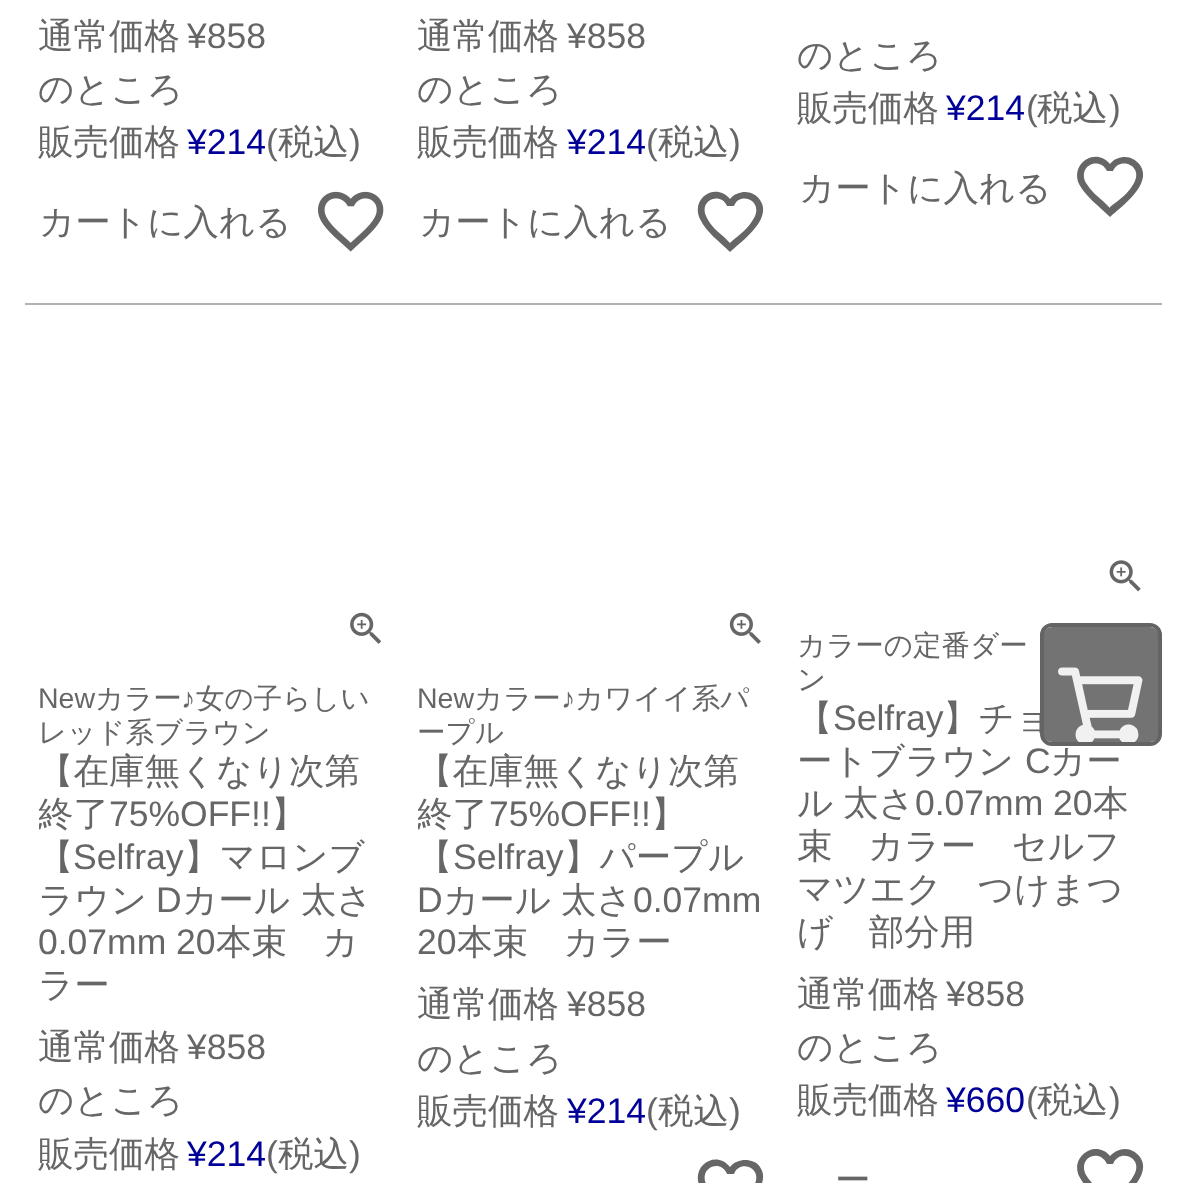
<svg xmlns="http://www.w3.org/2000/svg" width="1185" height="1183">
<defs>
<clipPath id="clip1"><rect x="39" y="683" width="351" height="323"/></clipPath>
<clipPath id="clip2"><rect x="418" y="683" width="350" height="281"/></clipPath>
</defs>
<rect width="100%" height="100%" fill="#fff"/>
<rect x="25" y="303" width="1137" height="2" fill="#b2b2b2"/>
<text x="38" y="48" style="font-family:WenQuanYi Zen Hei;font-size:35.5px;font-weight:500;fill:#666">通常価格</text>
<text x="187" y="48" style="font-family:Liberation Sans;font-size:35.5px;fill:#666">¥858</text>
<text x="38" y="101" style="font-family:WenQuanYi Zen Hei;font-size:35.5px;font-weight:500;fill:#666">のところ</text>
<text x="38" y="154" style="font-family:WenQuanYi Zen Hei;font-size:35.5px;font-weight:500;fill:#666">販売価格</text>
<text x="187" y="154" style="font-family:Liberation Sans;font-size:35.5px;fill:#009">¥214</text>
<text x="266" y="154" style="font-family:Liberation Sans;font-size:35.5px;fill:#666">(</text>
<text x="278" y="154" style="font-family:WenQuanYi Zen Hei;font-size:35.5px;font-weight:500;fill:#666">税込</text>
<text x="349" y="154" style="font-family:Liberation Sans;font-size:35.5px;fill:#666">)</text>
<text x="39" y="234" style="font-family:WenQuanYi Zen Hei;font-size:35.5px;font-weight:500;fill:#666">カートに入れる</text>
<image x="318" y="191" width="66" height="61" href="media/1.png"/>
<text x="417" y="48" style="font-family:WenQuanYi Zen Hei;font-size:35.5px;font-weight:500;fill:#666">通常価格</text>
<text x="567" y="48" style="font-family:Liberation Sans;font-size:35.5px;fill:#666">¥858</text>
<text x="417" y="101" style="font-family:WenQuanYi Zen Hei;font-size:35.5px;font-weight:500;fill:#666">のところ</text>
<text x="417" y="154" style="font-family:WenQuanYi Zen Hei;font-size:35.5px;font-weight:500;fill:#666">販売価格</text>
<text x="567" y="154" style="font-family:Liberation Sans;font-size:35.5px;fill:#009">¥214</text>
<text x="646" y="154" style="font-family:Liberation Sans;font-size:35.5px;fill:#666">(</text>
<text x="658" y="154" style="font-family:WenQuanYi Zen Hei;font-size:35.5px;font-weight:500;fill:#666">税込</text>
<text x="729" y="154" style="font-family:Liberation Sans;font-size:35.5px;fill:#666">)</text>
<text x="419" y="234" style="font-family:WenQuanYi Zen Hei;font-size:35.5px;font-weight:500;fill:#666">カートに入れる</text>
<path d="M745 192c-5 0-11 2-15 7c-14-17-40-1-30 20c6 13 20 23 30 33c12-11 43-33 30-52c-3-5-9-8-15-8zm-14 50l-1 1l-6-6c-6-5-13-11-17-19c-10-18 14-27 20-12h7c5-15 30-6 20 12c-5 10-15 17-23 24z" fill="#666"/>
<text x="797" y="67" style="font-family:WenQuanYi Zen Hei;font-size:35.5px;font-weight:500;fill:#666">のところ</text>
<text x="797" y="120" style="font-family:WenQuanYi Zen Hei;font-size:35.5px;font-weight:500;fill:#666">販売価格</text>
<text x="946" y="120" style="font-family:Liberation Sans;font-size:35.5px;fill:#009">¥214</text>
<text x="1026" y="120" style="font-family:Liberation Sans;font-size:35.5px;fill:#666">(</text>
<text x="1037" y="120" style="font-family:WenQuanYi Zen Hei;font-size:35.5px;font-weight:500;fill:#666">税込</text>
<text x="1109" y="120" style="font-family:Liberation Sans;font-size:35.5px;fill:#666">)</text>
<text x="799" y="200" style="font-family:WenQuanYi Zen Hei;font-size:35.5px;font-weight:500;fill:#666">カートに入れる</text>
<path d="M1125 157c-6 0-11 2-15 7c-14-17-40-1-31 20c7 13 21 23 31 33c12-11 43-33 30-52c-4-5-9-8-15-8zm-15 50v1l-6-6c-6-5-13-11-18-19c-9-18 14-27 21-12h6c6-15 31-6 21 12c-5 10-15 17-24 24z" fill="#666"/>
<image x="350" y="612" width="32" height="32" href="media/2.png"/>
<text x="38" y="708" style="font-family:Liberation Sans;font-size:28.5px;fill:#666">New</text>
<text x="95" y="708" style="font-family:WenQuanYi Zen Hei;font-size:28.5px;font-weight:500;fill:#666">カラー</text>
<text x="181" y="708" style="font-family:Liberation Sans;font-size:28.5px;fill:#666">♪</text>
<text x="196" y="708" style="font-family:WenQuanYi Zen Hei;font-size:28.5px;font-weight:500;fill:#666">女の子らしい</text>
<text x="38" y="742" style="font-family:WenQuanYi Zen Hei;font-size:28.5px;font-weight:500;fill:#666">レッド系ブラウン</text>
<text x="38" y="783" style="font-family:WenQuanYi Zen Hei;font-size:35.5px;font-weight:500;fill:#666">【在庫無くなり次第</text>
<g clip-path="url(#clip1)">
<text x="38" y="826" style="font-family:WenQuanYi Zen Hei;font-size:35.5px;font-weight:500;fill:#666">終了</text>
</g>
<text x="109" y="826" style="font-family:Liberation Sans;font-size:35.5px;fill:#666">75%OFF!!</text>
<text x="271" y="826" style="font-family:WenQuanYi Zen Hei;font-size:35.5px;font-weight:500;fill:#666">】</text>
<text x="38" y="869" style="font-family:WenQuanYi Zen Hei;font-size:35.5px;font-weight:500;fill:#666">【</text>
<text x="73" y="869" style="font-family:Liberation Sans;font-size:35.5px;fill:#666">Selfray</text>
<text x="184" y="869" style="font-family:WenQuanYi Zen Hei;font-size:35.5px;font-weight:500;fill:#666">】マロンブ</text>
<text x="38" y="912" style="font-family:WenQuanYi Zen Hei;font-size:35.5px;font-weight:500;fill:#666">ラウン</text>
<text x="156" y="912" style="font-family:Liberation Sans;font-size:35.5px;fill:#666">D</text>
<text x="182" y="912" style="font-family:WenQuanYi Zen Hei;font-size:35.5px;font-weight:500;fill:#666">カール 太さ</text>
<text x="38" y="954" style="font-family:Liberation Sans;font-size:35.5px;fill:#666">0.07mm 20</text>
<text x="216" y="954" style="font-family:WenQuanYi Zen Hei;font-size:35.5px;font-weight:500;fill:#666">本束　カ</text>
<text x="38" y="997" style="font-family:WenQuanYi Zen Hei;font-size:35.5px;font-weight:500;fill:#666">ラー</text>
<text x="38" y="1059" style="font-family:WenQuanYi Zen Hei;font-size:35.5px;font-weight:500;fill:#666">通常価格</text>
<text x="187" y="1059" style="font-family:Liberation Sans;font-size:35.5px;fill:#666">¥858</text>
<text x="38" y="1112" style="font-family:WenQuanYi Zen Hei;font-size:35.5px;font-weight:500;fill:#666">のところ</text>
<text x="38" y="1166" style="font-family:WenQuanYi Zen Hei;font-size:35.5px;font-weight:500;fill:#666">販売価格</text>
<text x="187" y="1166" style="font-family:Liberation Sans;font-size:35.5px;fill:#009">¥214</text>
<text x="266" y="1166" style="font-family:Liberation Sans;font-size:35.5px;fill:#666">(</text>
<text x="278" y="1166" style="font-family:WenQuanYi Zen Hei;font-size:35.5px;font-weight:500;fill:#666">税込</text>
<text x="349" y="1166" style="font-family:Liberation Sans;font-size:35.5px;fill:#666">)</text>
<image x="729" y="612" width="32" height="32" href="media/3.png"/>
<text x="417" y="708" style="font-family:Liberation Sans;font-size:28.5px;fill:#666">New</text>
<text x="474" y="708" style="font-family:WenQuanYi Zen Hei;font-size:28.5px;font-weight:500;fill:#666">カラー</text>
<text x="561" y="708" style="font-family:Liberation Sans;font-size:28.5px;fill:#666">♪</text>
<text x="575" y="708" style="font-family:WenQuanYi Zen Hei;font-size:28.5px;font-weight:500;fill:#666">カワイイ系パ</text>
<text x="417" y="742" style="font-family:WenQuanYi Zen Hei;font-size:28.5px;font-weight:500;fill:#666">ープル</text>
<text x="417" y="783" style="font-family:WenQuanYi Zen Hei;font-size:35.5px;font-weight:500;fill:#666">【在庫無くなり次第</text>
<g clip-path="url(#clip2)">
<text x="417" y="826" style="font-family:WenQuanYi Zen Hei;font-size:35.5px;font-weight:500;fill:#666">終了</text>
</g>
<text x="489" y="826" style="font-family:Liberation Sans;font-size:35.5px;fill:#666">75%OFF!!</text>
<text x="651" y="826" style="font-family:WenQuanYi Zen Hei;font-size:35.5px;font-weight:500;fill:#666">】</text>
<text x="417" y="869" style="font-family:WenQuanYi Zen Hei;font-size:35.5px;font-weight:500;fill:#666">【</text>
<text x="453" y="869" style="font-family:Liberation Sans;font-size:35.5px;fill:#666">Selfray</text>
<text x="564" y="869" style="font-family:WenQuanYi Zen Hei;font-size:35.5px;font-weight:500;fill:#666">】パープル</text>
<text x="417" y="912" style="font-family:Liberation Sans;font-size:35.5px;fill:#666">D</text>
<text x="443" y="912" word-spacing="-1" style="font-family:WenQuanYi Zen Hei;font-size:35.5px;font-weight:500;fill:#666">カール 太さ</text>
<text x="633" y="912" style="font-family:Liberation Sans;font-size:35.5px;fill:#666">0.07mm</text>
<text x="417" y="954" style="font-family:Liberation Sans;font-size:35.5px;fill:#666">20</text>
<text x="457" y="954" style="font-family:WenQuanYi Zen Hei;font-size:35.5px;font-weight:500;fill:#666">本束　カラー</text>
<text x="417" y="1016" style="font-family:WenQuanYi Zen Hei;font-size:35.5px;font-weight:500;fill:#666">通常価格</text>
<text x="567" y="1016" style="font-family:Liberation Sans;font-size:35.5px;fill:#666">¥858</text>
<text x="417" y="1070" style="font-family:WenQuanYi Zen Hei;font-size:35.5px;font-weight:500;fill:#666">のところ</text>
<text x="417" y="1123" style="font-family:WenQuanYi Zen Hei;font-size:35.5px;font-weight:500;fill:#666">販売価格</text>
<text x="567" y="1123" style="font-family:Liberation Sans;font-size:35.5px;fill:#009">¥214</text>
<text x="646" y="1123" style="font-family:Liberation Sans;font-size:35.5px;fill:#666">(</text>
<text x="658" y="1123" style="font-family:WenQuanYi Zen Hei;font-size:35.5px;font-weight:500;fill:#666">税込</text>
<text x="729" y="1123" style="font-family:Liberation Sans;font-size:35.5px;fill:#666">)</text>
<path d="M745 1160c-5 0-11 2-15 7c-14-18-40-1-30 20c6 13 20 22 30 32c12-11 43-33 30-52c-3-5-9-7-15-7zm-14 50l-1 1l-6-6c-6-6-13-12-17-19c-10-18 14-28 20-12h7c5-15 30-7 20 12c-5 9-15 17-23 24z" fill="#666"/>
<image x="1109" y="560" width="32" height="32" href="media/4.png"/>
<text x="797" y="655" style="font-family:WenQuanYi Zen Hei;font-size:28.5px;font-weight:500;fill:#666">カラーの定番ダー</text>
<text x="797" y="689" style="font-family:WenQuanYi Zen Hei;font-size:28.5px;font-weight:500;fill:#666">ン</text>
<text x="797" y="730" style="font-family:WenQuanYi Zen Hei;font-size:35.5px;font-weight:500;fill:#666">【</text>
<text x="833" y="730" style="font-family:Liberation Sans;font-size:35.5px;fill:#666">Selfray</text>
<text x="943" y="730" style="font-family:WenQuanYi Zen Hei;font-size:35.5px;font-weight:500;fill:#666">】チョ</text>
<text x="797" y="773" style="font-family:WenQuanYi Zen Hei;font-size:35.5px;font-weight:500;fill:#666">ートブラウン</text>
<text x="1025" y="773" style="font-family:Liberation Sans;font-size:35.5px;fill:#666">C</text>
<text x="1050" y="773" style="font-family:WenQuanYi Zen Hei;font-size:35.5px;font-weight:500;fill:#666">カー</text>
<text x="797" y="815" style="font-family:WenQuanYi Zen Hei;font-size:35.5px;font-weight:500;fill:#666">ル</text>
<text x="843" y="815" style="font-family:WenQuanYi Zen Hei;font-size:35.5px;font-weight:500;fill:#666">太さ</text>
<text x="915" y="815" style="font-family:Liberation Sans;font-size:35.5px;fill:#666">0.07mm 20</text>
<text x="1093" y="815" style="font-family:WenQuanYi Zen Hei;font-size:35.5px;font-weight:500;fill:#666">本</text>
<text x="797" y="858" style="font-family:WenQuanYi Zen Hei;font-size:35.5px;font-weight:500;fill:#666">束　カラー　セルフ</text>
<text x="797" y="901" style="font-family:WenQuanYi Zen Hei;font-size:35.5px;font-weight:500;fill:#666">マツエク　つけまつ</text>
<text x="797" y="944" style="font-family:WenQuanYi Zen Hei;font-size:35.5px;font-weight:500;fill:#666">げ　部分用</text>
<text x="797" y="1006" style="font-family:WenQuanYi Zen Hei;font-size:35.5px;font-weight:500;fill:#666">通常価格</text>
<text x="946" y="1006" style="font-family:Liberation Sans;font-size:35.5px;fill:#666">¥858</text>
<text x="797" y="1059" style="font-family:WenQuanYi Zen Hei;font-size:35.5px;font-weight:500;fill:#666">のところ</text>
<text x="797" y="1112" style="font-family:WenQuanYi Zen Hei;font-size:35.5px;font-weight:500;fill:#666">販売価格</text>
<text x="946" y="1112" style="font-family:Liberation Sans;font-size:35.5px;fill:#009">¥660</text>
<text x="1026" y="1112" style="font-family:Liberation Sans;font-size:35.5px;fill:#666">(</text>
<text x="1037" y="1112" style="font-family:WenQuanYi Zen Hei;font-size:35.5px;font-weight:500;fill:#666">税込</text>
<text x="1109" y="1112" style="font-family:Liberation Sans;font-size:35.5px;fill:#666">)</text>
<text x="835" y="1192" style="font-family:WenQuanYi Zen Hei;font-size:35.5px;font-weight:500;fill:#666">ー</text>
<path d="M1125 1149c-6 0-11 3-15 7c-14-17-40 0-31 20c7 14 21 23 31 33c12-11 43-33 30-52c-4-5-9-8-15-8zm-15 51l-6-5c-6-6-13-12-18-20c-9-18 14-27 21-11h6c6-16 31-7 21 11c-5 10-15 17-24 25z" fill="#666"/>
<rect x="1042" y="625" width="118" height="119" rx="10" fill="none" stroke="#646464" stroke-width="4"/>
<rect x="1043" y="627" width="116" height="115" rx="9" fill="#646464e6"/>
<image x="1058" y="667" width="85" height="75" href="media/5.png"/>
</svg>
